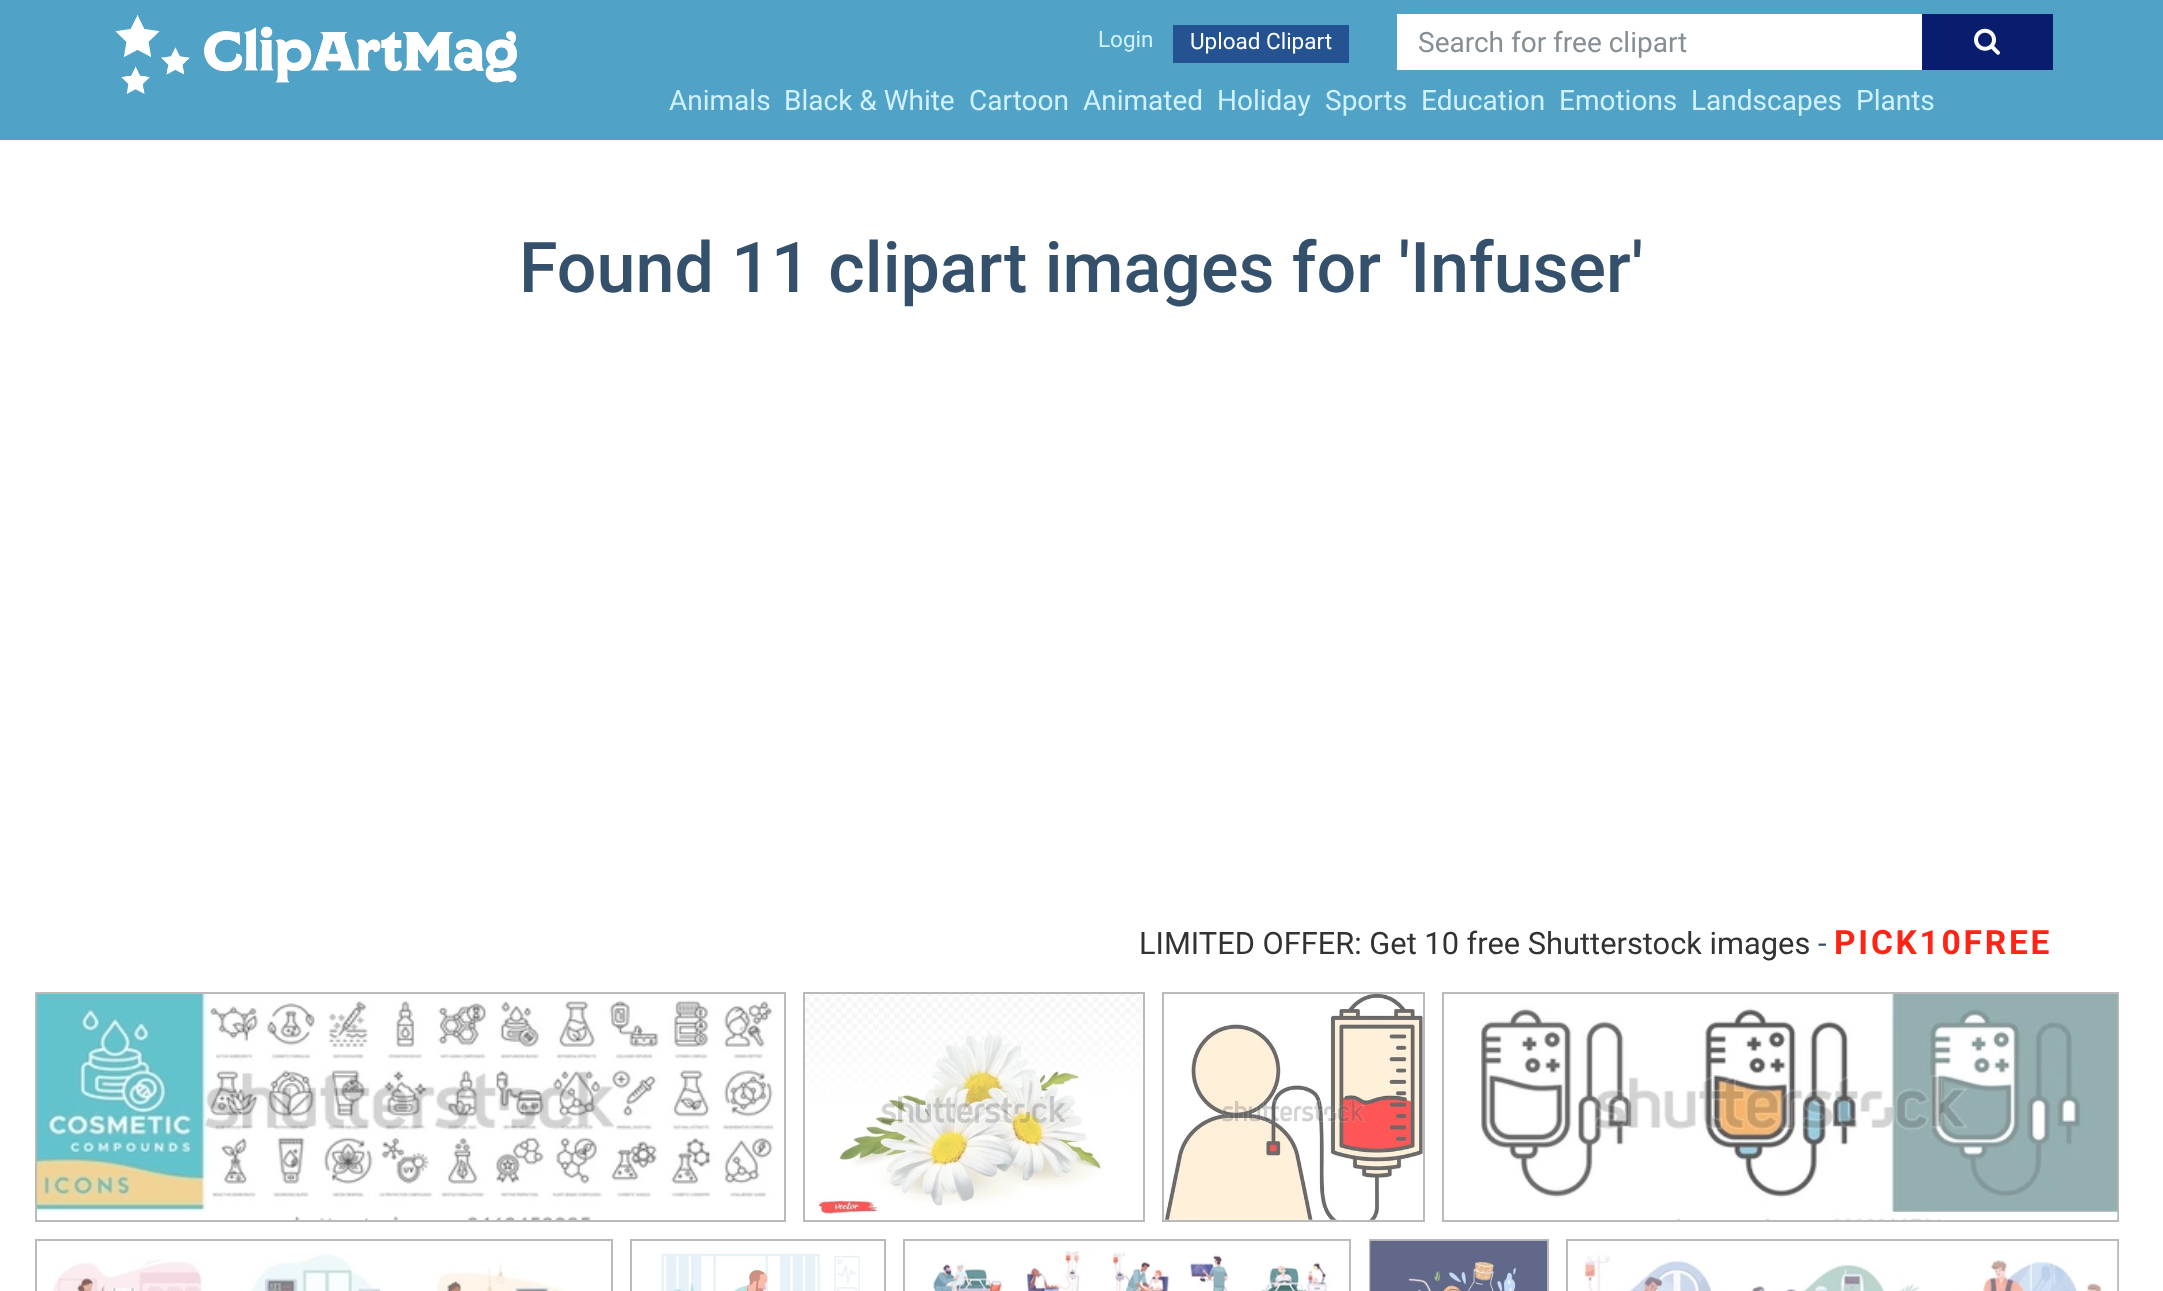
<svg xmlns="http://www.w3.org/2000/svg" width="2163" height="1291">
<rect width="100%" height="100%" fill="#fff"/>
<rect width="2163" height="140" fill="#50a3c7"/>
<text x="1098" y="47" style="font-family:Roboto;font-size:22.5px;fill:#d0f1ff">Login</text>
<rect x="1173" y="25" width="176" height="38" fill="#255392"/>
<text x="1190" y="49" style="font-family:Roboto;font-size:22.5px;fill:#fff">Upload Clipart</text>
<text x="669" y="110" style="font-family:Roboto;font-size:28px;fill:#d0f1ff">Animals</text>
<text x="784" y="110" style="font-family:Roboto;font-size:28px;fill:#d0f1ff">Black &amp; White</text>
<text x="969" y="110" style="font-family:Roboto;font-size:28px;fill:#d0f1ff">Cartoon</text>
<text x="1083" y="110" style="font-family:Roboto;font-size:28px;fill:#d0f1ff">Animated</text>
<text x="1217" y="110" style="font-family:Roboto;font-size:28px;fill:#d0f1ff">Holiday</text>
<text x="1325" y="110" style="font-family:Roboto;font-size:28px;fill:#d0f1ff">Sports</text>
<text x="1421" y="110" style="font-family:Roboto;font-size:28px;fill:#d0f1ff">Education</text>
<text x="1559" y="110" style="font-family:Roboto;font-size:28px;fill:#d0f1ff">Emotions</text>
<text x="1691" y="110" style="font-family:Roboto;font-size:28px;fill:#d0f1ff">Landscapes</text>
<text x="1856" y="110" style="font-family:Roboto;font-size:28px;fill:#d0f1ff">Plants</text>
<image x="115" y="15" width="402" height="79" href="media/1.png"/>
<rect x="1397" y="14" width="525" height="56" fill="#fff"/>
<text x="1418" y="52" style="font-family:Roboto;font-size:28px;fill:#868e96">Search for free clipart</text>
<rect x="1922" y="14" width="131" height="56" fill="#091d6e"/>
<image x="1974" y="28" width="26" height="27" href="media/2.png"/>
<text x="519" y="292" style="font-family:Roboto;font-size:70px;font-weight:500;fill:#34506b">Found 11 clipart images for 'Infuser'</text>
<text x="1139" y="954" style="font-family:Roboto;font-size:30.8px;fill:#323232">LIMITED OFFER: Get 10 free Shutterstock images</text>
<text x="1818" y="954" style="font-family:Roboto;font-size:30.8px;fill:#34506b">-</text>
<text x="1834" y="954" style="font-family:Roboto;font-size:33.5px;font-weight:bold;letter-spacing:2.75px;fill:#ff2414">PICK10FREE</text>
<rect x="36" y="993" width="749" height="228" fill="none" stroke="#bababa" stroke-width="2"/>
<image x="36" y="994" width="738" height="226" href="media/3.png"/>
<rect x="804" y="993" width="340" height="228" fill="none" stroke="#bababa" stroke-width="2"/>
<image x="805" y="994" width="338" height="221" href="media/4.png"/>
<rect x="1163" y="993" width="261" height="228" fill="none" stroke="#bababa" stroke-width="2"/>
<image x="1164" y="994" width="259" height="226" href="media/5.png"/>
<rect x="1443" y="993" width="675" height="228" fill="none" stroke="#bababa" stroke-width="2"/>
<image x="1481" y="994" width="637" height="226" href="media/6.png"/>
<rect x="36" y="1240" width="576" height="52" fill="none" stroke="#bababa" stroke-width="2"/>
<image x="52" y="1253" width="515" height="38" href="media/7.png"/>
<rect x="631" y="1240" width="254" height="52" fill="none" stroke="#bababa" stroke-width="2"/>
<image x="661" y="1253" width="199" height="38" href="media/8.png"/>
<rect x="904" y="1240" width="446" height="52" fill="none" stroke="#bababa" stroke-width="2"/>
<image x="904" y="1240" width="446" height="51" href="media/9.png"/>
<rect x="1370" y="1240" width="178" height="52" fill="none" stroke="#bababa" stroke-width="2"/>
<image x="1370" y="1240" width="177" height="51" href="media/10.png"/>
<rect x="1567" y="1240" width="551" height="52" fill="none" stroke="#bababa" stroke-width="2"/>
<image x="1584" y="1241" width="534" height="50" href="media/11.png"/>
</svg>
